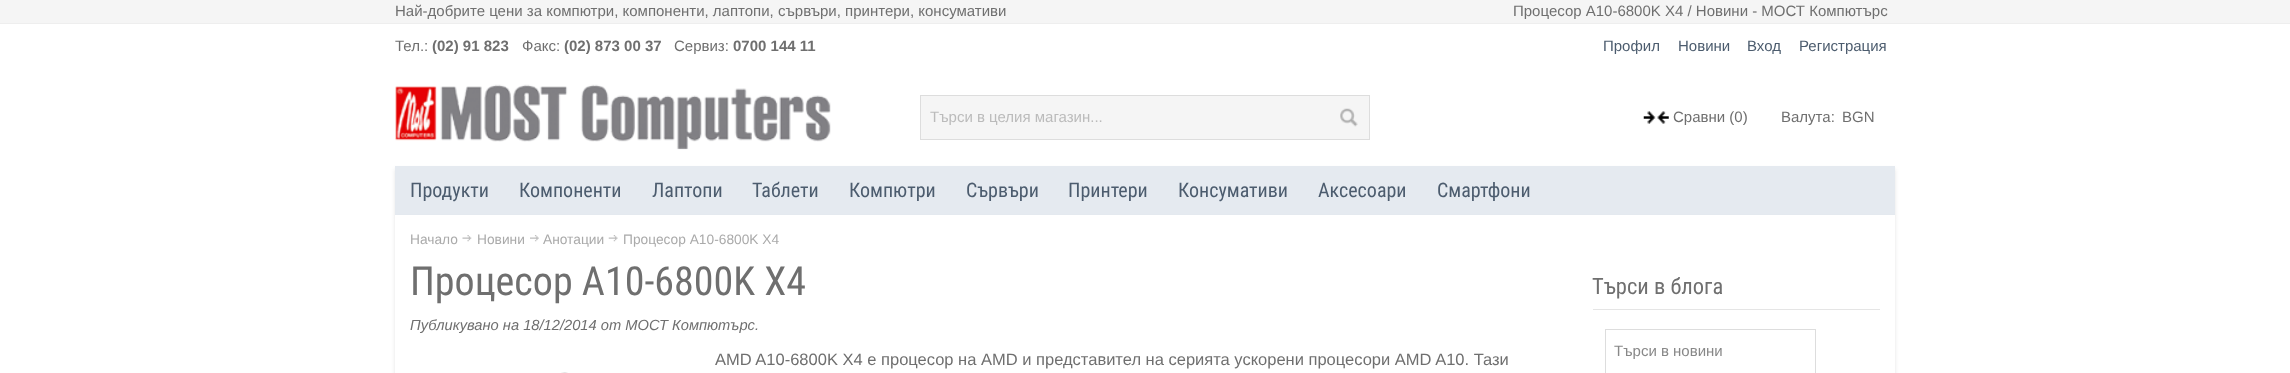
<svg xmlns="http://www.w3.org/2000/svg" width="2290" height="373">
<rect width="100%" height="100%" fill="#fff"/>
<rect width="2290" height="23" fill="#f5f5f5"/>
<rect y="23" width="2290" height="1" fill="#eee"/>
<text x="395" y="16" style="font-family:Liberation Sans;font-size:15px;fill:#6f6f6f">Най-добрите цени за компютри, компоненти, лаптопи, сървъри, принтери, консумативи</text>
<text x="1513" y="16" style="font-family:Liberation Sans;font-size:15px;fill:#6f6f6f">Процесор A10-6800K X4 / Новини - МОСТ Компютърс</text>
<text x="395" y="51" style="font-family:Liberation Sans;font-size:15px;fill:#6f6f6f">Тел.:</text>
<text x="432" y="51" style="font-family:Liberation Sans;font-size:15px;font-weight:bold;fill:#6f6f6f">(02) 91 823</text>
<text x="522" y="51" style="font-family:Liberation Sans;font-size:15px;fill:#6f6f6f">Факс:</text>
<text x="564" y="51" style="font-family:Liberation Sans;font-size:15px;font-weight:bold;fill:#6f6f6f">(02) 873 00 37</text>
<text x="674" y="51" style="font-family:Liberation Sans;font-size:15px;fill:#6f6f6f">Сервиз:</text>
<text x="733" y="51" style="font-family:Liberation Sans;font-size:15px;font-weight:bold;fill:#6f6f6f">0700 144 11</text>
<text x="1603" y="51" style="font-family:Liberation Sans;font-size:15px;fill:#4c5c6e">Профил</text>
<text x="1678" y="51" style="font-family:Liberation Sans;font-size:15px;fill:#4c5c6e">Новини</text>
<text x="1747" y="51" style="font-family:Liberation Sans;font-size:15px;fill:#4c5c6e">Вход</text>
<text x="1799" y="51" style="font-family:Liberation Sans;font-size:15px;fill:#4c5c6e">Регистрация</text>
<image x="395" y="84" width="436" height="66" href="media/1.png"/>
<rect x="920.5" y="95.5" width="449" height="44" fill="#f5f5f5" stroke="#ddd"/>
<text x="930" y="122" style="font-family:Liberation Sans;font-size:15px;fill:#bbb">Търси в целия магазин...</text>
<image x="1340" y="108" width="18" height="19" href="media/2.png"/>
<image x="1643" y="111" width="26" height="13" href="media/3.png"/>
<text x="1673" y="122" style="font-family:Liberation Sans;font-size:15px;fill:#6f6f6f">Сравни (0)</text>
<text x="1781" y="122" style="font-family:Liberation Sans;font-size:15px;fill:#6f6f6f">Валута:</text>
<text x="1842" y="122" style="font-family:Liberation Sans;font-size:15px;fill:#6f6f6f">BGN</text>
<rect x="395" y="169" width="1500" height="49" fill="#0000001a" filter="blur(2px)"/>
<rect x="395" y="166" width="1500" height="49" fill="#e5eaf0"/>
<text x="410" y="197" style="font-family:Roboto Condensed;font-size:20px;fill:#4c5c6e">Продукти</text>
<text x="519" y="197" style="font-family:Roboto Condensed;font-size:20px;fill:#4c5c6e">Компоненти</text>
<text x="652" y="197" style="font-family:Roboto Condensed;font-size:20px;fill:#4c5c6e">Лаптопи</text>
<text x="752" y="197" style="font-family:Roboto Condensed;font-size:20px;fill:#4c5c6e">Таблети</text>
<text x="849" y="197" style="font-family:Roboto Condensed;font-size:20px;fill:#4c5c6e">Компютри</text>
<text x="966" y="197" style="font-family:Roboto Condensed;font-size:20px;fill:#4c5c6e">Сървъри</text>
<text x="1068" y="197" style="font-family:Roboto Condensed;font-size:20px;fill:#4c5c6e">Принтери</text>
<text x="1178" y="197" style="font-family:Roboto Condensed;font-size:20px;fill:#4c5c6e">Консумативи</text>
<text x="1318" y="197" style="font-family:Roboto Condensed;font-size:20px;fill:#4c5c6e">Аксесоари</text>
<text x="1437" y="197" style="font-family:Roboto Condensed;font-size:20px;fill:#4c5c6e">Смартфони</text>
<rect x="395" y="218" width="1500" height="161" fill="#0000001a" filter="blur(2px)"/>
<rect x="395" y="215" width="1500" height="158" fill="#fff"/>
<text x="410" y="244" style="font-family:Liberation Sans;font-size:13.75px;fill:#aaa">Начало</text>
<image x="462" y="235" width="10" height="7" href="media/4.png"/>
<text x="477" y="244" style="font-family:Liberation Sans;font-size:13.75px;fill:#aaa">Новини</text>
<image x="530" y="235" width="9" height="7" href="media/5.png"/>
<text x="543" y="244" style="font-family:Liberation Sans;font-size:13.75px;fill:#aaa">Анотации</text>
<image x="608" y="235" width="10" height="7" href="media/6.png"/>
<text x="623" y="244" style="font-family:Liberation Sans;font-size:13.75px;fill:#aaa">Процесор A10-6800K X4</text>
<text x="410" y="295" style="font-family:Roboto Condensed;font-size:40px;fill:#6f6f6f">Процесор A10-6800K X4</text>
<text x="410" y="330" style="font-family:Liberation Sans;font-size:14.7px;font-style:italic;fill:#6f6f6f">Публикувано на 18/12/2014 от МОСТ Компютърс.</text>
<text x="715" y="365" style="font-family:Liberation Sans;font-size:16.5px;fill:#6f6f6f">AMD A10-6800K X4 е процесор на AMD и представител на серията ускорени процесори AMD A10. Тази</text>
<image x="561" y="372" width="7" height="1" href="media/7.png"/>
<rect x="1593" y="309" width="287" height="1" fill="#e5e5e5"/>
<text x="1592" y="294" style="font-family:Roboto Condensed;font-size:22.5px;fill:#6f6f6f">Търси в блога</text>
<rect x="1605.5" y="329.5" width="210" height="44" fill="none" stroke="#ddd"/>
<text x="1614" y="356" style="font-family:Liberation Sans;font-size:15px;fill:#888">Търси в новини</text>
</svg>
